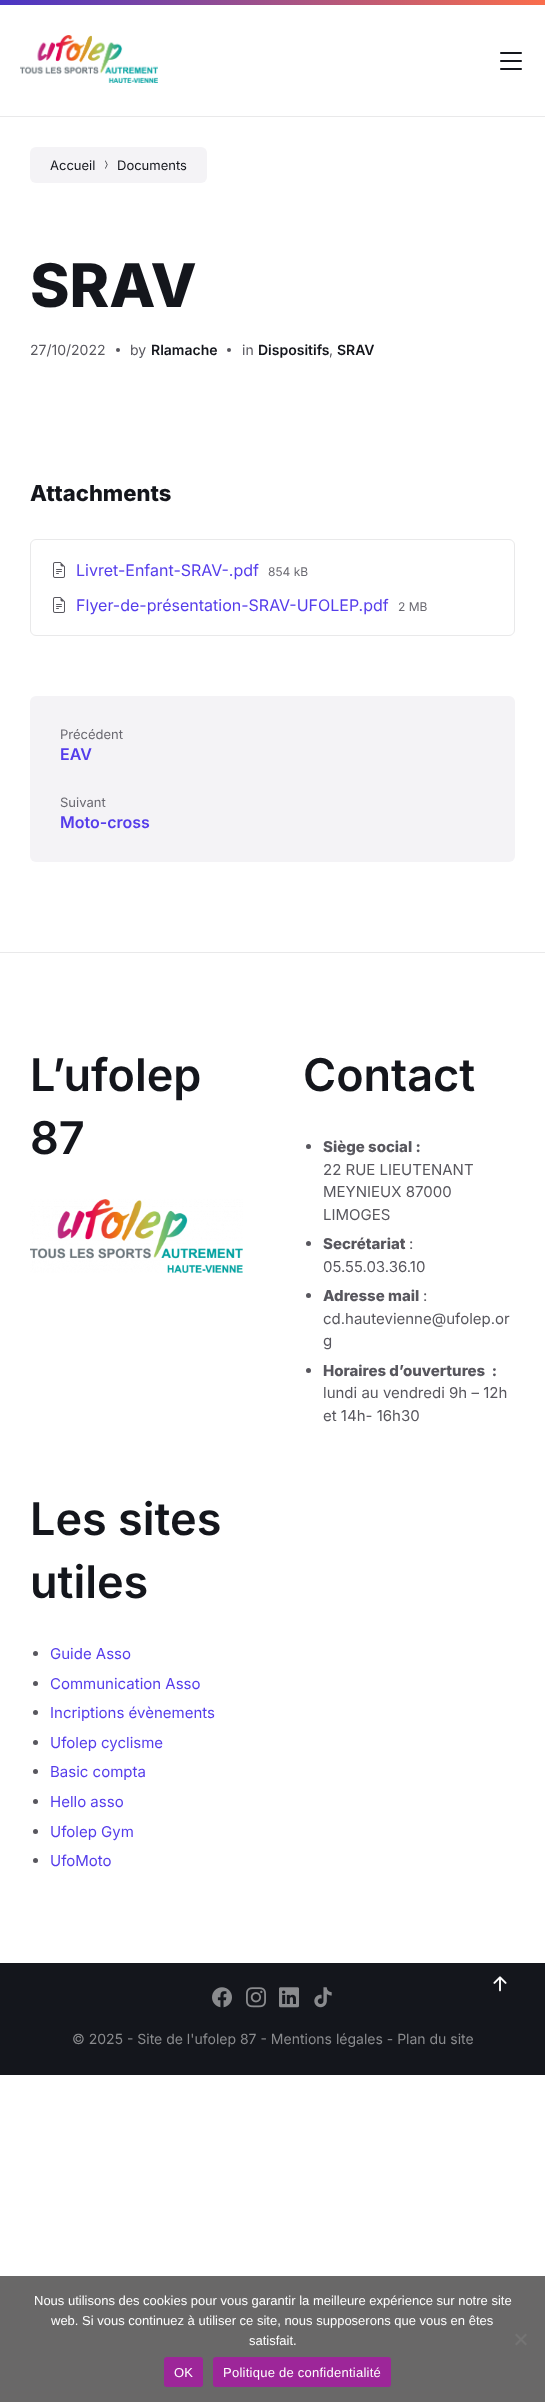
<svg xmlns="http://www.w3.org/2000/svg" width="545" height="2402">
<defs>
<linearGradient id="g1" gradientUnits="userSpaceOnUse" x1="0" y1="2.5" x2="545" y2="2.5"><stop offset="0" stop-color="#4935c5"/><stop offset="1" stop-color="#fa6d4b"/></linearGradient>
</defs>
<rect width="100%" height="100%" fill="#fff"/>
<rect y="116" width="545" height="1" fill="#e9e9ea"/>
<rect width="545" height="5" fill="url(#g1)"/>
<image x="20" y="35" width="138" height="48" href="media/1.png"/>
<image x="500" y="52" width="22" height="18" href="media/2.png"/>
<rect x="30" y="147" width="177" height="36" rx="6" fill="#f4f3f6"/>
<text x="50" y="170" style="font-family:Inter;font-size:13px;fill:#14161c">Accueil</text>
<image x="105" y="160" width="3" height="9" href="media/3.png"/>
<text x="117" y="170" style="font-family:Inter;font-size:13px;fill:#14161c">Documents</text>
<text x="30" y="307" style="font-family:Inter;font-size:60px;font-weight:800;fill:#14161c">SRAV</text>
<text x="30" y="355" style="font-family:Inter;font-size:14px;fill:#58575e">27/10/2022</text>
<circle cx="118" cy="350" r="2" fill="#58575e"/>
<text x="130" y="355" style="font-family:Inter;font-size:14px;fill:#58575e">by</text>
<text x="151" y="355" style="font-family:Inter;font-size:14px;font-weight:600;fill:#14161c">Rlamache</text>
<circle cx="229" cy="350" r="2" fill="#58575e"/>
<text x="242" y="355" style="font-family:Inter;font-size:14px;fill:#58575e">in</text>
<text x="258" y="355" style="font-family:Inter;font-size:14px;font-weight:600;fill:#14161c">Dispositifs</text>
<text x="329" y="355" style="font-family:Inter;font-size:14px;fill:#58575e">,</text>
<text x="337" y="355" style="font-family:Inter;font-size:14px;font-weight:600;fill:#14161c">SRAV</text>
<text x="30" y="501" style="font-family:Inter;font-size:22px;font-weight:800;fill:#14161c">Attachments</text>
<rect x="30.5" y="539.5" width="484" height="96" rx="5.5" fill="none" stroke="#e9e9ea"/>
<image x="53" y="562" width="12" height="16" href="media/4.png"/>
<text x="76" y="576" style="font-family:Inter;font-size:16px;fill:#553deb">Livret-Enfant-SRAV-.pdf</text>
<text x="268" y="576" style="font-family:Inter;font-size:12px;fill:#6a6971">854 kB</text>
<image x="53" y="597" width="12" height="16" href="media/4.png"/>
<text x="76" y="611" style="font-family:Inter;font-size:16px;fill:#553deb">Flyer-de-présentation-SRAV-UFOLEP.pdf</text>
<text x="398" y="611" style="font-family:Inter;font-size:12px;fill:#6a6971">2 MB</text>
<rect x="30" y="696" width="485" height="166" rx="6" fill="#f4f3f6"/>
<text x="60" y="739" style="font-family:Inter;font-size:13px;fill:#6a6971">Précédent</text>
<text x="60" y="760" style="font-family:Inter;font-size:16px;font-weight:600;fill:#553deb">EAV</text>
<text x="60" y="807" style="font-family:Inter;font-size:13px;fill:#6a6971">Suivant</text>
<text x="60" y="828" style="font-family:Inter;font-size:16px;font-weight:600;fill:#553deb">Moto-cross</text>
<rect y="952" width="545" height="1" fill="#e9e9ea"/>
<text x="30" y="1091" style="font-family:Inter;font-size:45px;font-weight:600;fill:#14161c">L’ufolep</text>
<text x="30" y="1154" style="font-family:Inter;font-size:45px;font-weight:600;fill:#14161c">87</text>
<image x="30" y="1199" width="213" height="74" href="media/5.png"/>
<text x="303" y="1091" style="font-family:Inter;font-size:45px;font-weight:600;fill:#14161c">Contact</text>
<circle cx="308.5" cy="1146.5" r="2.5" fill="#58575e"/>
<text x="323" y="1152" style="font-family:Inter;font-size:15px;font-weight:800;fill:#58575e">Siège social :</text>
<text x="323" y="1175" style="font-family:Inter;font-size:15px;fill:#58575e">22 RUE LIEUTENANT</text>
<text x="323" y="1197" style="font-family:Inter;font-size:15px;fill:#58575e">MEYNIEUX 87000</text>
<text x="323" y="1220" style="font-family:Inter;font-size:15px;fill:#58575e">LIMOGES</text>
<circle cx="308.5" cy="1243.5" r="2.5" fill="#58575e"/>
<text x="323" y="1249" style="font-family:Inter;font-size:15px;font-weight:800;fill:#58575e">Secrétariat</text>
<text x="409" y="1249" style="font-family:Inter;font-size:15px;fill:#58575e">:</text>
<text x="323" y="1272" style="font-family:Inter;font-size:15px;fill:#58575e">05.55.03.36.10</text>
<circle cx="308.5" cy="1295.5" r="2.5" fill="#58575e"/>
<text x="323" y="1301" style="font-family:Inter;font-size:15px;font-weight:800;fill:#58575e">Adresse mail</text>
<text x="423" y="1301" style="font-family:Inter;font-size:15px;fill:#58575e">:</text>
<text x="323" y="1324" style="font-family:Inter;font-size:15px;fill:#58575e">cd.hautevienne@ufolep.or</text>
<text x="323" y="1346" style="font-family:Inter;font-size:15px;fill:#58575e">g</text>
<circle cx="308.5" cy="1370.5" r="2.5" fill="#58575e"/>
<text x="323" y="1376" style="font-family:Inter;font-size:15px;font-weight:800;fill:#58575e" xml:space="preserve">Horaires d’ouvertures  :</text>
<text x="323" y="1398" style="font-family:Inter;font-size:15px;fill:#58575e">lundi au vendredi 9h – 12h</text>
<text x="323" y="1421" style="font-family:Inter;font-size:15px;fill:#58575e">et 14h- 16h30</text>
<text x="30" y="1535" style="font-family:Inter;font-size:45px;font-weight:600;fill:#14161c">Les sites</text>
<text x="30" y="1598" style="font-family:Inter;font-size:45px;font-weight:600;fill:#14161c">utiles</text>
<circle cx="35.5" cy="1653.5" r="2.5" fill="#58575e"/>
<text x="50" y="1659" style="font-family:Inter;font-size:15px;fill:#553deb">Guide Asso</text>
<circle cx="35.5" cy="1683.5" r="2.5" fill="#58575e"/>
<text x="50" y="1689" style="font-family:Inter;font-size:15px;fill:#553deb">Communication Asso</text>
<circle cx="35.5" cy="1712.5" r="2.5" fill="#58575e"/>
<text x="50" y="1718" style="font-family:Inter;font-size:15px;fill:#553deb">Incriptions évènements</text>
<circle cx="35.5" cy="1742.5" r="2.5" fill="#58575e"/>
<text x="50" y="1748" style="font-family:Inter;font-size:15px;fill:#553deb">Ufolep cyclisme</text>
<circle cx="35.5" cy="1771.5" r="2.5" fill="#58575e"/>
<text x="50" y="1777" style="font-family:Inter;font-size:15px;fill:#553deb">Basic compta</text>
<circle cx="35.5" cy="1801.5" r="2.5" fill="#58575e"/>
<text x="50" y="1807" style="font-family:Inter;font-size:15px;fill:#553deb">Hello asso</text>
<circle cx="35.5" cy="1831.5" r="2.5" fill="#58575e"/>
<text x="50" y="1837" style="font-family:Inter;font-size:15px;fill:#553deb">Ufolep Gym</text>
<circle cx="35.5" cy="1860.5" r="2.5" fill="#58575e"/>
<text x="50" y="1866" style="font-family:Inter;font-size:15px;fill:#553deb">UfoMoto</text>
<rect y="1963" width="545" height="112" fill="#14161c"/>
<image x="493" y="1976" width="14" height="16" href="media/6.png"/>
<image x="212" y="1987" width="20" height="21" href="media/7.png"/>
<image x="246" y="1987" width="20" height="21" href="media/8.png"/>
<image x="279" y="1987" width="20" height="21" href="media/9.png"/>
<image x="314" y="1987" width="18" height="21" href="media/10.png"/>
<text x="72" y="2044" style="font-family:Inter;font-size:14px;fill:#8a8b8e">© 2025 - Site de l'ufolep 87 - Mentions légales - Plan du site</text>
<rect y="2276" width="545" height="126" fill="#696868"/>
<text x="34" y="2305" style="font-family:Liberation Sans;font-size:13px;fill:#fff">Nous utilisons des cookies pour vous garantir la meilleure expérience sur notre site</text>
<text x="51" y="2325" style="font-family:Liberation Sans;font-size:13px;fill:#fff">web. Si vous continuez à utiliser ce site, nous supposerons que vous en êtes</text>
<text x="249" y="2345" style="font-family:Liberation Sans;font-size:13px;fill:#fff">satisfait.</text>
<path d="M525.5 2333.5l1.5 1.5l-10.5 10.5l-1.5-1.5z" fill="#757474"/>
<path d="M515 2335l1.5-1.5l10.5 10.5l-1.5 1.5z" fill="#757474"/>
<rect x="164" y="2357" width="39" height="30" rx="3" fill="#9d2699"/>
<text x="174" y="2377" style="font-family:Liberation Sans;font-size:13px;letter-spacing:0.25px;fill:#fff">OK</text>
<rect x="213" y="2357" width="178" height="30" rx="3" fill="#9d2699"/>
<text x="223" y="2377" style="font-family:Liberation Sans;font-size:13px;letter-spacing:0.25px;fill:#fff">Politique de confidentialité</text>
</svg>
